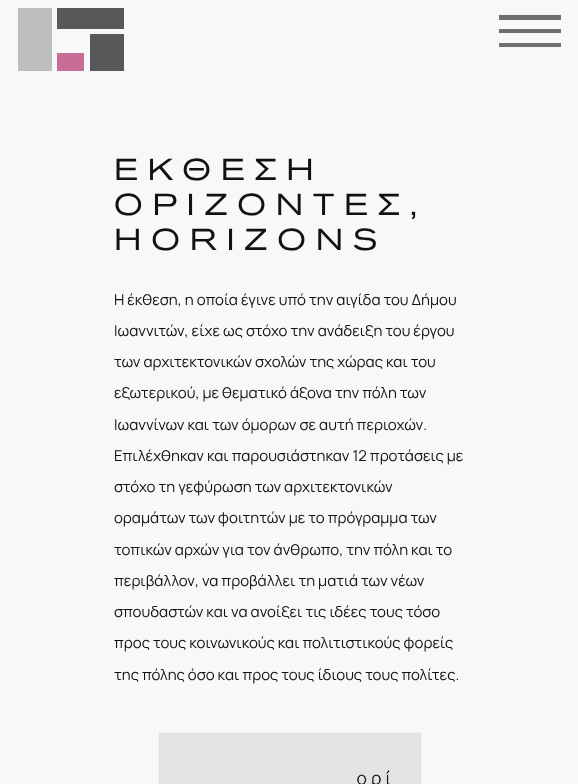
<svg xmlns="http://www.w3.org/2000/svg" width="578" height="784">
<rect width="100%" height="100%" fill="#f8f8f8"/>
<rect x="18" y="8" width="34" height="63" fill="#bdbec0"/>
<rect x="57" y="8" width="67" height="21" fill="#58585a"/>
<rect x="90" y="34" width="34" height="37" fill="#58585a"/>
<rect x="57" y="53" width="27" height="18" fill="#c76e97"/>
<rect x="499" y="15" width="62" height="5" fill="#6f6f6f"/>
<rect x="499" y="29" width="62" height="4" fill="#6f6f6f"/>
<rect x="499" y="43" width="62" height="4" fill="#6f6f6f"/>
<text x="114" y="180" style="font-family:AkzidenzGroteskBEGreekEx;font-size:30px;letter-spacing:9.75px;fill:#111">ΕΚΘΕΣΗ</text>
<text x="114" y="215" style="font-family:AkzidenzGroteskBEGreekEx;font-size:30px;letter-spacing:9.75px;fill:#111">ΟΡΙΖΟΝΤΕΣ,</text>
<text x="114" y="250" style="font-family:AkzidenzGroteskBEGreekEx;font-size:30px;letter-spacing:9.75px;fill:#111">HORIZONS</text>
<text x="114" y="305" style="font-family:Manrope;font-size:15px;fill:#111">Η έκθεση, η οποία έγινε υπό την αιγίδα του Δήμου</text>
<text x="114" y="336" style="font-family:Manrope;font-size:15px;fill:#111">Ιωαννιτών, είχε ως στόχο την ανάδειξη του έργου</text>
<text x="114" y="367" style="font-family:Manrope;font-size:15px;fill:#111">των αρχιτεκτονικών σχολών της χώρας και του</text>
<text x="114" y="398" style="font-family:Manrope;font-size:15px;fill:#111">εξωτερικού, με θεματικό άξονα την πόλη των</text>
<text x="114" y="430" style="font-family:Manrope;font-size:15px;fill:#111">Ιωαννίνων και των όμορων σε αυτή περιοχών.</text>
<text x="114" y="461" style="font-family:Manrope;font-size:15px;fill:#111">Επιλέχθηκαν και παρουσιάστηκαν 12 προτάσεις με</text>
<text x="114" y="492" style="font-family:Manrope;font-size:15px;fill:#111">στόχο τη γεφύρωση των αρχιτεκτονικών</text>
<text x="114" y="523" style="font-family:Manrope;font-size:15px;fill:#111">οραμάτων των φοιτητών με το πρόγραμμα των</text>
<text x="114" y="555" style="font-family:Manrope;font-size:15px;fill:#111">τοπικών αρχών για τον άνθρωπο, την πόλη και το</text>
<text x="114" y="586" style="font-family:Manrope;font-size:15px;fill:#111">περιβάλλον, να προβάλλει τη ματιά των νέων</text>
<text x="114" y="617" style="font-family:Manrope;font-size:15px;fill:#111">σπουδαστών και να ανοίξει τις ιδέες τους τόσο</text>
<text x="114" y="648" style="font-family:Manrope;font-size:15px;fill:#111">προς τους κοινωνικούς και πολιτιστικούς φορείς</text>
<text x="114" y="680" style="font-family:Manrope;font-size:15px;fill:#111">της πόλης όσο και προς τους ίδιους τους πολίτες.</text>
<image x="158" y="732" width="264" height="52" href="media/1.png"/>
</svg>
